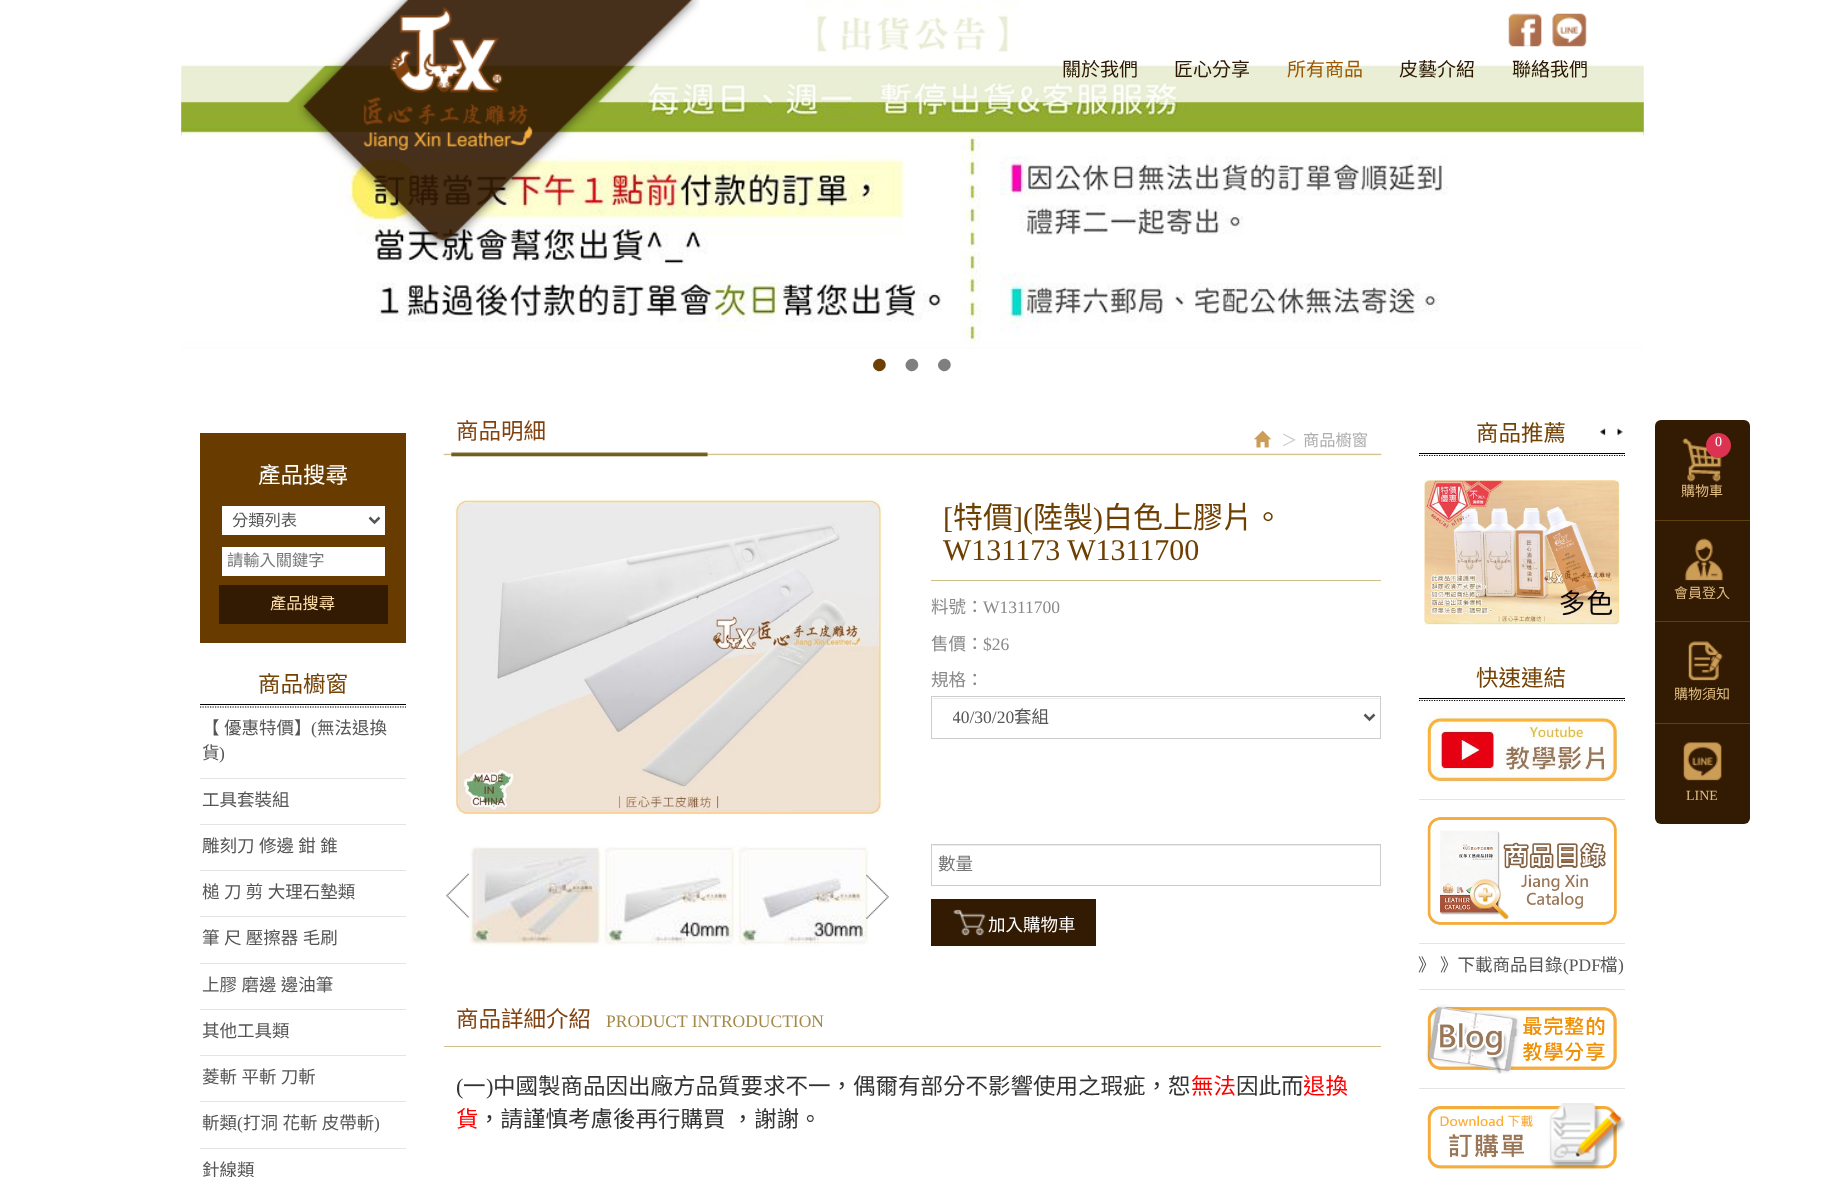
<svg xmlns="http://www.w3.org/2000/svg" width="1823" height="1177">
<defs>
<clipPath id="clip1"><rect x="953" y="706" width="392" height="22"/></clipPath>
</defs>
<rect width="100%" height="100%" fill="#fff"/>
<image x="181" y="0" width="1463" height="349" href="media/1.png"/>
<image x="181" y="0" width="1463" height="349" href="media/2.png"/>
<path d="M884 360.5c5.5 6-3 14.5-9 9c-6-6 3-14.5 9-9z" fill="#6d3f00"/>
<path d="M916.5 360.5c5.5 6-3 14.5-9 9c-6-6 3-14.5 9-9zm32.5 0c5.5 6-3 14.5-9 9c-6-6 3-14.5 9-9z" fill="#7f7f7f"/>
<image x="181" y="9" width="1463" height="94" href="media/3.png"/>
<image x="297" y="0" width="403" height="249" href="media/4.png"/>
<image x="1508" y="13" width="34" height="34" href="media/5.png"/>
<image x="1552" y="13" width="35" height="34" href="media/6.png"/>
<text x="1062" y="76" style="font-family:Noto Sans CJK TC;font-size:19px;fill:#2c1703">關於我們</text>
<text x="1174" y="76" style="font-family:Noto Sans CJK TC;font-size:19px;fill:#2c1703">匠心分享</text>
<text x="1287" y="76" style="font-family:Noto Sans CJK TC;font-size:19px;fill:#9b5800">所有商品</text>
<text x="1399" y="76" style="font-family:Noto Sans CJK TC;font-size:19px;fill:#2c1703">皮藝介紹</text>
<text x="1512" y="76" style="font-family:Noto Sans CJK TC;font-size:19px;fill:#2c1703">聯絡我們</text>
<rect x="200" y="433" width="206" height="210" fill="#683c00"/>
<text x="258" y="483" style="font-family:Noto Sans CJK TC;font-size:22.5px;fill:#fff">產品搜尋</text>
<rect x="222" y="506" width="163" height="29" fill="#fff"/>
<path d="M369.5 517.5l5 5l5-5" fill="none" stroke="#555" stroke-width="2.5"/>
<text x="232" y="526" style="font-family:Noto Sans CJK TC;font-size:16.25px;fill:#555">分類列表</text>
<rect x="222" y="547" width="163" height="29" fill="#fff"/>
<text x="227" y="566" style="font-family:Noto Sans CJK TC;font-size:16.25px;fill:#777">請輸入關鍵字</text>
<rect x="219" y="585" width="169" height="39" fill="#331a02"/>
<text x="270" y="609" style="font-family:Noto Sans CJK TC;font-size:16.25px;fill:#ffdfab">產品搜尋</text>
<path d="M200 707h206" fill="none" stroke="#000" stroke-width="1.2" stroke-dasharray="1.25 1.25"/>
<text x="258" y="692" style="font-family:Noto Sans CJK TC;font-size:22.5px;fill:#744205">商品櫥窗</text>
<rect x="200" y="704" width="206" height="1" fill="#000"/>
<text x="202" y="734" word-spacing="0.5" style="font-family:Noto Sans CJK TC;font-size:17.5px;fill:#555">【 優惠特價】</text>
<text x="311" y="734" style="font-family:Liberation Serif;font-size:17.5px;fill:#555">(</text>
<text x="317" y="734" style="font-family:Noto Sans CJK TC;font-size:17.5px;fill:#555">無法退換</text>
<text x="202" y="759" style="font-family:Noto Sans CJK TC;font-size:17.5px;fill:#555">貨</text>
<text x="219" y="759" style="font-family:Liberation Serif;font-size:17.5px;fill:#555">)</text>
<rect x="200" y="778" width="206" height="1" fill="#e4e4e4"/>
<text x="202" y="806" style="font-family:Noto Sans CJK TC;font-size:17.5px;fill:#555">工具套裝組</text>
<rect x="200" y="824" width="206" height="1" fill="#e4e4e4"/>
<text x="202" y="852" word-spacing="0.5" style="font-family:Noto Sans CJK TC;font-size:17.5px;fill:#555">雕刻刀 修邊 鉗 錐</text>
<rect x="200" y="870" width="206" height="1" fill="#e4e4e4"/>
<text x="202" y="898" word-spacing="0.5" style="font-family:Noto Sans CJK TC;font-size:17.5px;fill:#555">槌 刀 剪 大理石墊類</text>
<rect x="200" y="916" width="206" height="1" fill="#e4e4e4"/>
<text x="202" y="944" word-spacing="0.5" style="font-family:Noto Sans CJK TC;font-size:17.5px;fill:#555">筆 尺 壓擦器 毛刷</text>
<rect x="200" y="963" width="206" height="1" fill="#e4e4e4"/>
<text x="202" y="991" word-spacing="0.5" style="font-family:Noto Sans CJK TC;font-size:17.5px;fill:#555">上膠 磨邊 邊油筆</text>
<rect x="200" y="1009" width="206" height="1" fill="#e4e4e4"/>
<text x="202" y="1037" style="font-family:Noto Sans CJK TC;font-size:17.5px;fill:#555">其他工具類</text>
<rect x="200" y="1055" width="206" height="1" fill="#e4e4e4"/>
<text x="202" y="1083" word-spacing="0.5" style="font-family:Noto Sans CJK TC;font-size:17.5px;fill:#555">菱斬 平斬 刀斬</text>
<rect x="200" y="1101" width="206" height="1" fill="#e4e4e4"/>
<text x="202" y="1129" style="font-family:Noto Sans CJK TC;font-size:17.5px;fill:#555">斬類</text>
<text x="237" y="1129" style="font-family:Liberation Serif;font-size:17.5px;fill:#555">(</text>
<text x="243" y="1129" word-spacing="0.5" style="font-family:Noto Sans CJK TC;font-size:17.5px;fill:#555">打洞 花斬 皮帶斬</text>
<text x="374" y="1129" style="font-family:Liberation Serif;font-size:17.5px;fill:#555">)</text>
<rect x="200" y="1148" width="206" height="1" fill="#e4e4e4"/>
<text x="202" y="1176" style="font-family:Noto Sans CJK TC;font-size:17.5px;fill:#555">針線類</text>
<image x="443" y="452" width="939" height="5" href="media/7.png"/>
<text x="456" y="439" style="font-family:Noto Sans CJK TC;font-size:22.5px;fill:#82420f">商品明細</text>
<image x="1254" y="430" width="18" height="18" href="media/8.png"/>
<text x="1281" y="446" style="font-family:Noto Sans CJK TC;font-size:16.25px;fill:#ccc">＞</text>
<text x="1303" y="446" style="font-family:Noto Sans CJK TC;font-size:16.25px;fill:#aeaeae">商品櫥窗</text>
<image x="454" y="499" width="429" height="316" href="media/9.png"/>
<image x="446" y="873" width="23" height="45" href="media/10.png"/>
<image x="469" y="845" width="134" height="101" href="media/11.png"/>
<image x="603" y="845" width="133" height="101" href="media/12.png"/>
<image x="736" y="845" width="133" height="101" href="media/13.png"/>
<image x="866" y="874" width="23" height="45" href="media/14.png"/>
<rect x="931" y="580" width="450" height="1" fill="#cfbf8a"/>
<text x="943" y="528" style="font-family:Liberation Serif;font-size:30px;fill:#6d3f00">[</text>
<text x="953" y="528" style="font-family:Noto Sans CJK TC;font-size:30px;fill:#6d3f00">特價</text>
<text x="1013" y="528" style="font-family:Liberation Serif;font-size:30px;fill:#6d3f00">](</text>
<text x="1033" y="528" style="font-family:Noto Sans CJK TC;font-size:30px;fill:#6d3f00">陸製</text>
<text x="1093" y="528" style="font-family:Liberation Serif;font-size:30px;fill:#6d3f00">)</text>
<text x="1103" y="528" style="font-family:Noto Sans CJK TC;font-size:30px;fill:#6d3f00">白色上膠片。</text>
<text x="943" y="560" style="font-family:Liberation Serif;font-size:30px;fill:#6d3f00">W131173 W1311700</text>
<text x="931" y="613" style="font-family:Noto Sans CJK TC;font-size:17.5px;fill:#8a8a8a">料號：</text>
<text x="983" y="613" style="font-family:Liberation Serif;font-size:17.5px;fill:#8a8a8a">W1311700</text>
<text x="931" y="650" style="font-family:Noto Sans CJK TC;font-size:17.5px;fill:#8a8a8a">售價：</text>
<text x="983" y="650" style="font-family:Liberation Serif;font-size:17.5px;fill:#8a8a8a">$26</text>
<text x="931" y="686" style="font-family:Noto Sans CJK TC;font-size:17.5px;fill:#8a8a8a">規格：</text>
<rect x="933" y="698" width="447" height="1" fill="#ececec"/>
<rect x="931.5" y="696.5" width="449" height="42" fill="none" stroke="#ccc"/>
<path d="M1364.5 714.5l5 5l5-5" fill="none" stroke="#555" stroke-width="2.5"/>
<g clip-path="url(#clip1)">
<text x="952" y="723" style="font-family:Liberation Serif;font-size:17.5px;fill:#555">40/30/20</text>
</g>
<text x="1014" y="723" style="font-family:Noto Sans CJK TC;font-size:17.5px;fill:#555">套組</text>
<rect x="933" y="845" width="447" height="1" fill="#ececec"/>
<rect x="931.5" y="844.5" width="449" height="41" fill="none" stroke="#ccc"/>
<text x="938" y="870" style="font-family:Noto Sans CJK TC;font-size:17.5px;fill:#777">數量</text>
<rect x="931" y="899" width="165" height="47" fill="#331a02"/>
<image x="953" y="909" width="33" height="27" href="media/15.png"/>
<text x="988" y="931" style="font-family:Noto Sans CJK TC;font-size:17.5px;fill:#fff">加入購物車</text>
<rect x="444" y="1046" width="937" height="1" fill="#cfbf8a"/>
<text x="456" y="1027" style="font-family:Noto Sans CJK TC;font-size:22.5px;fill:#82420f">商品詳細介紹</text>
<text x="606" y="1027" style="font-family:Liberation Serif;font-size:17.5px;fill:#a48a48">PRODUCT INTRODUCTION</text>
<text x="456" y="1094" style="font-family:Liberation Serif;font-size:22.5px;fill:#333">(</text>
<text x="463" y="1094" style="font-family:Noto Sans CJK TC;font-size:22.5px;fill:#333">一</text>
<text x="486" y="1094" style="font-family:Liberation Serif;font-size:22.5px;fill:#333">)</text>
<text x="493" y="1094" style="font-family:Noto Sans CJK TC;font-size:22.5px;fill:#333">中國製商品因出廠方品質要求不一，偶爾有部分不影響使用之瑕疵，恕</text>
<text x="1191" y="1094" style="font-family:Noto Sans CJK TC;font-size:22.5px;fill:#f00">無法</text>
<text x="1236" y="1094" style="font-family:Noto Sans CJK TC;font-size:22.5px;fill:#333">因此而</text>
<text x="1303" y="1094" style="font-family:Noto Sans CJK TC;font-size:22.5px;fill:#f00">退換</text>
<text x="456" y="1127" style="font-family:Noto Sans CJK TC;font-size:22.5px;fill:#f00">貨</text>
<text x="478" y="1127" word-spacing="1" style="font-family:Noto Sans CJK TC;font-size:22.5px;fill:#333">，請謹慎考慮後再行購買 ，謝謝。</text>
<path d="M1419 455.5h206" fill="none" stroke="#000" stroke-width="1.2" stroke-dasharray="1.25 1.25"/>
<text x="1476" y="441" style="font-family:Noto Sans CJK TC;font-size:22.5px;fill:#744205">商品推薦</text>
<rect x="1419" y="453" width="206" height="1" fill="#000"/>
<image x="1599" y="428" width="7" height="8" href="media/16.png"/>
<image x="1617" y="428" width="6" height="8" href="media/17.png"/>
<image x="1424" y="480" width="196" height="145" href="media/18.png"/>
<path d="M1419 700.5h206" fill="none" stroke="#000" stroke-width="1.2" stroke-dasharray="1.25 1.25"/>
<text x="1476" y="686" style="font-family:Noto Sans CJK TC;font-size:22.5px;fill:#744205">快速連結</text>
<rect x="1419" y="698" width="206" height="1" fill="#000"/>
<image x="1427" y="711" width="197" height="72" href="media/19.png"/>
<rect x="1419" y="799" width="206" height="1" fill="#e4e4e4"/>
<image x="1427" y="817" width="190" height="108" href="media/20.png"/>
<rect x="1419" y="943" width="206" height="1" fill="#e4e4e4"/>
<text x="1418" y="971" word-spacing="0.5" style="font-family:Noto Sans CJK TC;font-size:17.5px;fill:#555">》 》下載商品目錄</text>
<text x="1563" y="971" style="font-family:Liberation Serif;font-size:17.5px;fill:#555">(PDF</text>
<text x="1600" y="971" style="font-family:Noto Sans CJK TC;font-size:17.5px;fill:#555">檔</text>
<text x="1618" y="971" style="font-family:Liberation Serif;font-size:17.5px;fill:#555">)</text>
<rect x="1419" y="989" width="206" height="1" fill="#e4e4e4"/>
<image x="1426" y="1004" width="191" height="70" href="media/21.png"/>
<rect x="1419" y="1088" width="206" height="1" fill="#e4e4e4"/>
<image x="1427" y="1103" width="198" height="67" href="media/22.png"/>
<rect x="1655" y="420" width="95" height="404" rx="6" fill="#331a02"/>
<image x="1682" y="438" width="40" height="44" href="media/23.png"/>
<circle cx="1718.5" cy="445.5" r="12.5" fill="#dc3353"/>
<text x="1715" y="446" style="font-family:Liberation Serif;font-size:14px;fill:#fff">0</text>
<text x="1681" y="496" style="font-family:Noto Sans CJK TC;font-size:14px;fill:#dfbc7f">購物車</text>
<rect x="1655" y="520" width="95" height="1" fill="#624009"/>
<image x="1684" y="538" width="39" height="43" href="media/24.png"/>
<text x="1674" y="598" style="font-family:Noto Sans CJK TC;font-size:14px;fill:#dfbc7f">會員登入</text>
<rect x="1655" y="621" width="95" height="1" fill="#624009"/>
<image x="1688" y="641" width="35" height="40" href="media/25.png"/>
<text x="1674" y="699" style="font-family:Noto Sans CJK TC;font-size:14px;fill:#dfbc7f">購物須知</text>
<rect x="1655" y="723" width="95" height="1" fill="#624009"/>
<image x="1683" y="742" width="39" height="39" href="media/26.png"/>
<text x="1686" y="800" style="font-family:Liberation Serif;font-size:14px;fill:#dfbc7f">LINE</text>
</svg>
